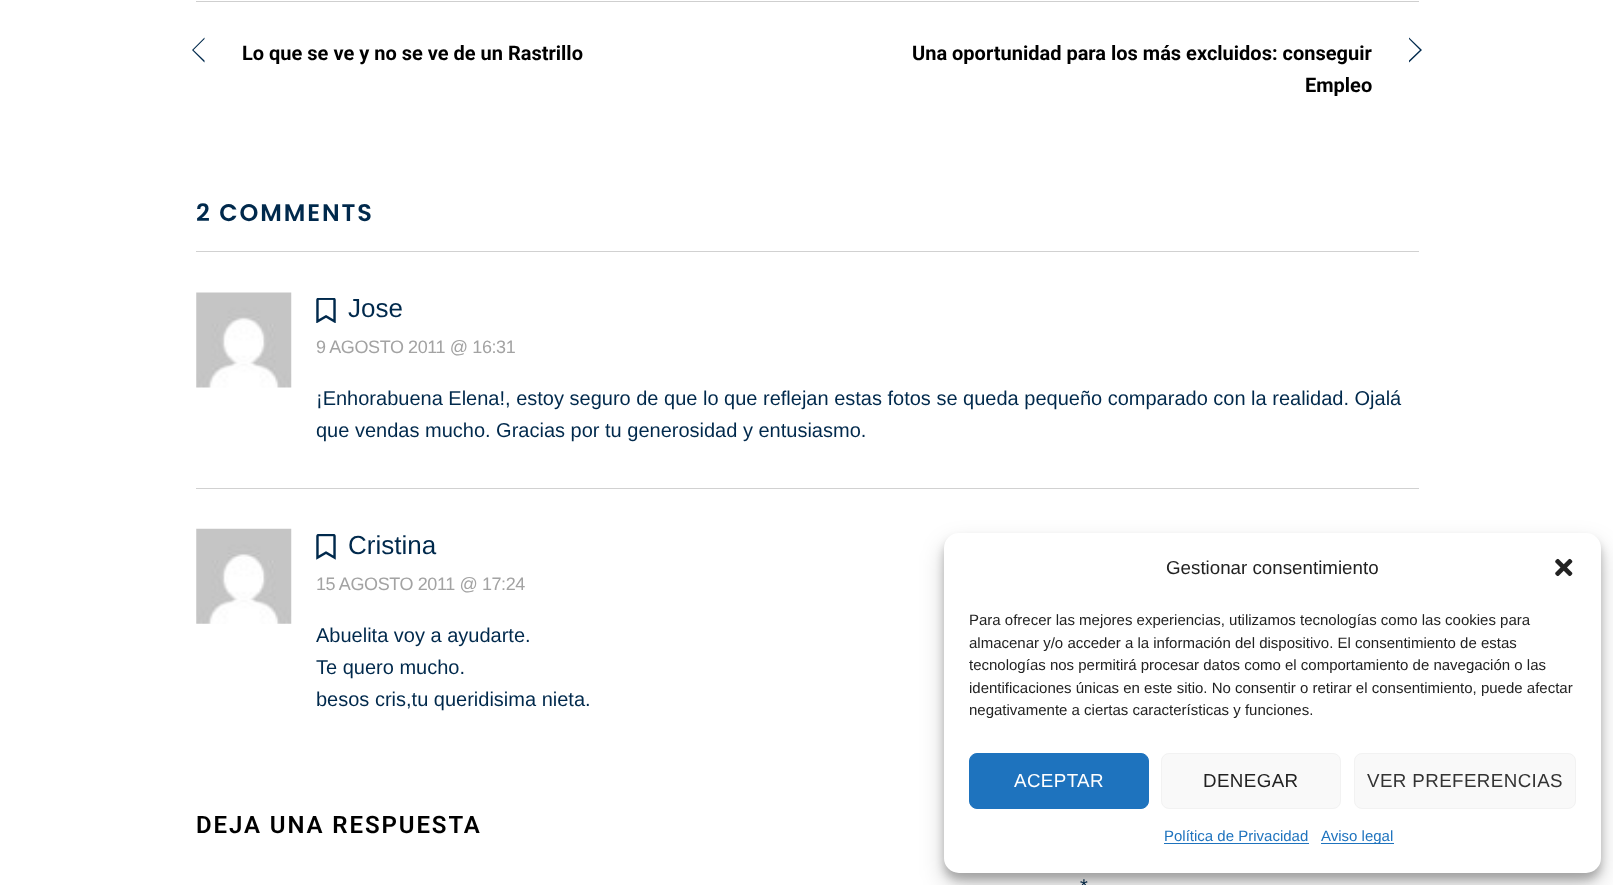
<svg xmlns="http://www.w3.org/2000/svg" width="1613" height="885">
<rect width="100%" height="100%" fill="#fff"/>
<rect x="196" y="1" width="1223" height="1" fill="#cfcfcf"/>
<path d="M192 50l12.5-12.5v1.5l-11 11zm12.5 12.5l-12.5-12.5h1.5l11 10.5z" fill="#00294c"/>
<text x="242" y="60" style="font-family:Roboto;font-size:20px;font-weight:bold;fill:#000">Lo que se ve y no se ve de un Rastrillo</text>
<text x="912" y="60" style="font-family:Roboto;font-size:20px;font-weight:bold;fill:#000">Una oportunidad para los más excluidos: conseguir</text>
<path d="M1409 37.5l13 12.5h-2l-11-11zm13 12.5l-13 12.5v-2l11-10.5z" fill="#00294c"/>
<text x="1305" y="92" style="font-family:Roboto;font-size:20px;font-weight:bold;fill:#000">Empleo</text>
<text x="196" y="221" style="font-family:Poppins;font-size:24px;font-weight:600;letter-spacing:1.9px;fill:#00294c">2 COMMENTS</text>
<rect x="196" y="251" width="1223" height="1" fill="#d1d1d1"/>
<image x="196" y="292" width="96" height="96" href="media/1.png"/>
<image x="316" y="298" width="20" height="25" href="media/2.png"/>
<text x="348" y="317" style="font-family:Liberation Sans;font-size:26px;fill:#00294c">Jose</text>
<text x="316" y="353" style="font-family:Liberation Sans;font-size:18px;letter-spacing:-0.4px;fill:#a3a3a3">9 AGOSTO 2011 @ 16:31</text>
<text x="316" y="405" style="font-family:Liberation Sans;font-size:20px;fill:#00294c">¡Enhorabuena Elena!, estoy seguro de que lo que reflejan estas fotos se queda pequeño comparado con la realidad. Ojalá</text>
<text x="316" y="437" style="font-family:Liberation Sans;font-size:20px;fill:#00294c">que vendas mucho. Gracias por tu generosidad y entusiasmo.</text>
<rect x="196" y="488" width="1223" height="1" fill="#d1d1d1"/>
<image x="196" y="528" width="96" height="96" href="media/3.png"/>
<image x="316" y="534" width="20" height="26" href="media/4.png"/>
<text x="348" y="554" style="font-family:Liberation Sans;font-size:26px;fill:#00294c">Cristina</text>
<text x="316" y="590" style="font-family:Liberation Sans;font-size:18px;letter-spacing:-0.4px;fill:#a3a3a3">15 AGOSTO 2011 @ 17:24</text>
<text x="316" y="642" style="font-family:Liberation Sans;font-size:20px;fill:#00294c">Abuelita voy a ayudarte.</text>
<text x="316" y="674" style="font-family:Liberation Sans;font-size:20px;fill:#00294c">Te quero mucho.</text>
<text x="316" y="706" style="font-family:Liberation Sans;font-size:20px;fill:#00294c">besos cris,tu queridisima nieta.</text>
<text x="196" y="833" style="font-family:Roboto;font-size:24px;font-weight:600;letter-spacing:1.9px;fill:#000">DEJA UNA RESPUESTA</text>
<text x="1080" y="893" style="font-family:Liberation Sans;font-size:20px;fill:#00294c">*</text>
<rect x="944" y="540" width="657" height="340" rx="15" fill="#0000003b" filter="blur(4px)"/>
<rect x="944" y="545" width="657" height="340" rx="15" fill="#00000030" filter="blur(12.5px)"/>
<rect x="944" y="533" width="657" height="340" rx="15" fill="#fff"/>
<text x="1166" y="574" style="font-family:Liberation Sans;font-size:18.75px;fill:#222">Gestionar consentimiento</text>
<image x="1555" y="558" width="18" height="19" href="media/5.png"/>
<text x="969" y="625" style="font-family:Liberation Sans;font-size:15px;fill:#222">Para ofrecer las mejores experiencias, utilizamos tecnologías como las cookies para</text>
<text x="969" y="648" style="font-family:Liberation Sans;font-size:15px;fill:#222">almacenar y/o acceder a la información del dispositivo. El consentimiento de estas</text>
<text x="969" y="670" style="font-family:Liberation Sans;font-size:15px;fill:#222">tecnologías nos permitirá procesar datos como el comportamiento de navegación o las</text>
<text x="969" y="693" style="font-family:Liberation Sans;font-size:15px;fill:#222">identificaciones únicas en este sitio. No consentir o retirar el consentimiento, puede afectar</text>
<text x="969" y="715" style="font-family:Liberation Sans;font-size:15px;fill:#222">negativamente a ciertas características y funciones.</text>
<rect x="969.5" y="753.5" width="179" height="55" rx="7.5" fill="#1e73be" stroke="#1e73be"/>
<text x="1014" y="787" style="font-family:Liberation Sans;font-size:18.75px;letter-spacing:0.4px;fill:#fff">ACEPTAR</text>
<rect x="1161.5" y="753.5" width="179" height="55" rx="7.5" fill="#f9f9f9" stroke="#f2f2f2"/>
<text x="1203" y="787" style="font-family:Liberation Sans;font-size:18.75px;letter-spacing:0.4px;fill:#222">DENEGAR</text>
<rect x="1354.5" y="753.5" width="221" height="55" rx="7.5" fill="#f9f9f9" stroke="#f2f2f2"/>
<text x="1367" y="787" style="font-family:Liberation Sans;font-size:18.75px;letter-spacing:0.4px;fill:#333">VER PREFERENCIAS</text>
<text x="1164" y="841" style="font-family:Liberation Sans;font-size:15px;fill:#1e73be">Política de Privacidad</text>
<rect x="1164" y="843" width="145" height="1" fill="#1e73be"/>
<rect x="1321" y="843" width="73" height="1" fill="#1e73be"/>
<text x="1321" y="841" style="font-family:Liberation Sans;font-size:15px;fill:#1e73be">Aviso legal</text>
</svg>
